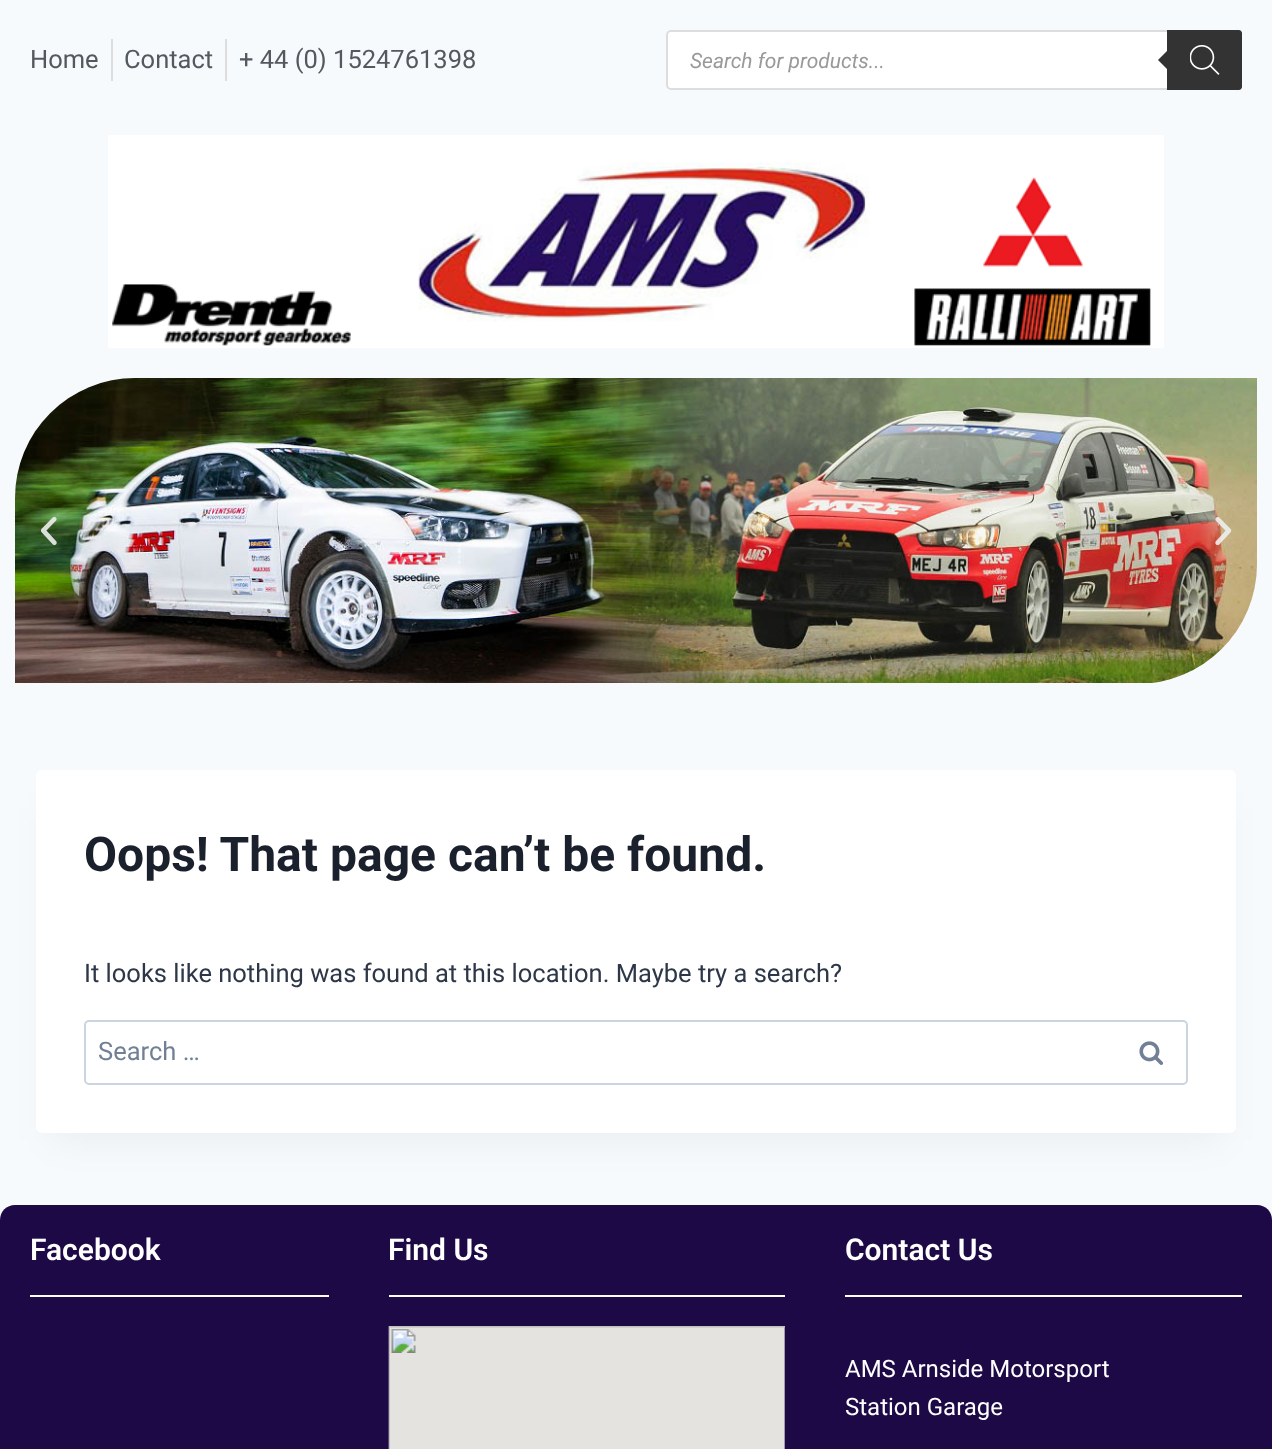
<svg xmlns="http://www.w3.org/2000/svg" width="1272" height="1449">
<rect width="100%" height="100%" fill="#f7fafc"/>
<text x="30" y="68" style="font-family:Roboto;font-size:25.5px;fill:#54595f">Home</text>
<rect x="111" y="39" width="2" height="42" fill="#ddd"/>
<text x="124" y="68" style="font-family:Roboto;font-size:25.5px;fill:#54595f">Contact</text>
<rect x="225" y="39" width="2" height="42" fill="#ddd"/>
<text x="239" y="68" style="font-family:Roboto;font-size:25.5px;fill:#54595f">+ 44 (0) 1524761398</text>
<rect x="667" y="31" width="574" height="58" rx="4" fill="#fff" stroke="#ddd" stroke-width="2"/>
<text x="690" y="68" style="font-family:Roboto;font-size:21px;font-style:italic;fill:#999">Search for products...</text>
<path d="M1167 30h72c1.5 0 3 1.5 3 3v54c0 1.5-1.5 3-3 3h-72z" fill="#333"/>
<path d="M1170 48v24l-12-12z" fill="#333"/>
<image x="1190" y="45" width="30" height="30" href="media/1.png"/>
<image x="108" y="135" width="1056" height="213" href="media/2.png"/>
<image x="15" y="378" width="1242" height="305" href="media/3.png"/>
<image x="41" y="517" width="16" height="28" href="media/4.png"/>
<image x="1215" y="517" width="17" height="28" href="media/5.png"/>
<rect x="51" y="807" width="1170" height="333" fill="#0000000d" filter="blur(19px)"/>
<rect x="36" y="770" width="1200" height="363" rx="6" fill="#fff"/>
<text x="84" y="871" style="font-family:Roboto;font-size:48px;font-weight:bold;fill:#1a202c">Oops! That page can’t be found.</text>
<text x="84" y="982" style="font-family:Roboto;font-size:25.5px;fill:#2d3748">It looks like nothing was found at this location. Maybe try a search?</text>
<rect x="85" y="1021" width="1102" height="63" rx="4" fill="none" stroke="#cbd5e0" stroke-width="2"/>
<text x="98" y="1060" style="font-family:Roboto;font-size:25.5px;fill:#718096">Search …</text>
<image x="1139" y="1041" width="25" height="24" href="media/6.png"/>
<path d="M15 1205h1242c8.5 0 15 6.5 15 15v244h-1272v-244c0-8.5 6.5-15 15-15z" fill="#1d0946"/>
<text x="30" y="1260" style="font-family:Roboto;font-size:30px;font-weight:600;fill:#fff">Facebook</text>
<rect x="30" y="1295" width="299" height="2" fill="#fff"/>
<text x="388" y="1260" style="font-family:Roboto;font-size:30px;font-weight:600;fill:#fff">Find Us</text>
<rect x="389" y="1295" width="396" height="2" fill="#fff"/>
<image x="388" y="1326" width="397" height="123" href="media/7.png"/>
<text x="845" y="1260" style="font-family:Roboto;font-size:30px;font-weight:600;fill:#fff">Contact Us</text>
<rect x="845" y="1295" width="397" height="2" fill="#fff"/>
<text x="845" y="1377" style="font-family:Roboto;font-size:24px;fill:#fff">AMS Arnside Motorsport</text>
<text x="845" y="1415" style="font-family:Roboto;font-size:24px;fill:#fff">Station Garage</text>
</svg>
